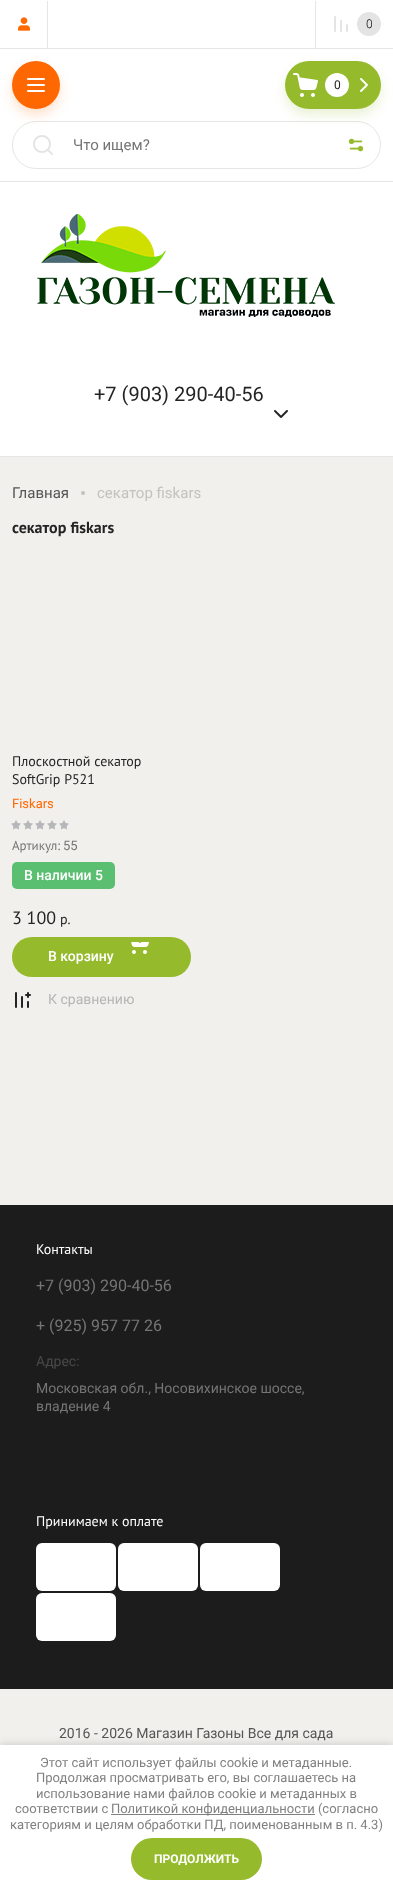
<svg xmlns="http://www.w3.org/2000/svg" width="393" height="1890">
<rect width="100%" height="100%" fill="#f2f0ec"/>
<rect width="393" height="456" fill="#fff"/>
<rect y="48" width="393" height="1" fill="#e6e6e6"/>
<rect x="47" y="1" width="1" height="47" fill="#e6e6e6"/>
<image x="18" y="17" width="12" height="14" href="media/1.png"/>
<rect x="315" y="1" width="1" height="47" fill="#e6e6e6"/>
<image x="334" y="16" width="14" height="16" href="media/2.png"/>
<circle cx="369" cy="24" r="12" fill="#e4e4e4"/>
<text x="366" y="28" style="font-family:Roboto;font-size:12px;font-weight:300;fill:#000">0</text>
<rect y="456" width="393" height="1" fill="#e6e6e6"/>
<rect x="12.5" y="121.5" width="368" height="47" rx="23.5" fill="none" stroke="#e6e6e6"/>
<rect x="12" y="67" width="48" height="48" rx="24" fill="#ff670033" filter="blur(6px)"/>
<circle cx="36" cy="85" r="24" fill="#ff6700"/>
<image x="27" y="78" width="18" height="14" href="media/3.png"/>
<rect x="285" y="67" width="96" height="48" rx="24" fill="#95ba2c33" filter="blur(6px)"/>
<rect x="285" y="61" width="96" height="48" rx="24" fill="#95ba2c"/>
<image x="293" y="73" width="25" height="24" href="media/4.png"/>
<circle cx="337" cy="85" r="12" fill="#fff"/>
<text x="334" y="89" style="font-family:Roboto;font-size:12px;fill:#242424">0</text>
<image x="360" y="78" width="8" height="14" href="media/5.png"/>
<image x="33" y="135" width="20" height="20" href="media/6.png"/>
<text x="73" y="150" style="font-family:Roboto;font-size:15px;fill:#757575">Что ищем?</text>
<image x="348" y="138" width="16" height="14" href="media/7.png"/>
<rect y="181" width="393" height="1" fill="#e6e6e6"/>
<image x="37" y="214" width="298" height="103" href="media/8.png"/>
<text x="94" y="401" style="font-family:Roboto;font-size:20px;fill:#242424">+7 (903) 290-40-56</text>
<image x="274" y="410" width="14" height="8" href="media/9.png"/>
<text x="12" y="498" style="font-family:Roboto;font-size:15px;fill:#555">Главная</text>
<circle cx="83" cy="493" r="2" fill="#c3c2bf"/>
<text x="97" y="498" style="font-family:Roboto;font-size:15px;fill:#c3c2bf">секатор fiskars</text>
<text x="12" y="533" style="font-family:PT Sans;font-size:16px;font-weight:bold;fill:#242424">секатор fiskars</text>
<text x="12" y="766" style="font-family:PT Sans;font-size:14px;fill:#242424">Плоскостной секатор</text>
<text x="12" y="784" style="font-family:PT Sans;font-size:14px;fill:#242424">SoftGrip P521</text>
<text x="12" y="808" style="font-family:Roboto;font-size:13px;fill:#ff6700">Fiskars</text>
<image x="11" y="820" width="58" height="10" href="media/10.png"/>
<text x="12" y="850" style="font-family:PT Sans;font-size:13px;fill:#757575">Артикул:</text>
<text x="63" y="850" style="font-family:Roboto;font-size:13px;fill:#757575">55</text>
<rect x="12" y="862" width="103" height="27" rx="5" fill="#5abf70"/>
<text x="24" y="880" style="font-family:Roboto;font-size:14px;font-weight:500;fill:#fff">В наличии 5</text>
<text x="12" y="924" style="font-family:PT Sans;font-size:18px;fill:#242424">3 100</text>
<text x="60" y="924" style="font-family:PT Sans;font-size:14px;fill:#242424">р.</text>
<rect x="12" y="937" width="179" height="40" rx="20" fill="#95ba2c"/>
<image x="131" y="942" width="18" height="12" href="media/11.png"/>
<text x="48" y="961" style="font-family:Roboto;font-size:14px;font-weight:500;fill:#fff">В корзину</text>
<image x="15" y="992" width="16" height="16" href="media/12.png"/>
<text x="48" y="1004" style="font-family:Roboto;font-size:14px;fill:#b5b5b5">К сравнению</text>
<rect y="1205" width="393" height="484" fill="#1c1c1d"/>
<text x="36" y="1254" style="font-family:PT Sans;font-size:14px;fill:#fff">Контакты</text>
<text x="36" y="1291" style="font-family:Roboto;font-size:16px;fill:#757575">+7 (903) 290-40-56</text>
<text x="36" y="1331" style="font-family:Roboto;font-size:16px;fill:#757575">+ (925) 957 77 26</text>
<text x="36" y="1366" style="font-family:Roboto;font-size:14px;fill:#49494a">Адрес:</text>
<text x="36" y="1393" style="font-family:Roboto;font-size:14px;fill:#757575">Московская обл., Носовихинское шоссе,</text>
<text x="36" y="1411" style="font-family:Roboto;font-size:14px;fill:#757575">владение 4</text>
<text x="36" y="1526" style="font-family:PT Sans;font-size:14px;fill:#fff">Принимаем к оплате</text>
<rect x="36" y="1543" width="80" height="48" rx="6" fill="#fff"/>
<rect x="118" y="1543" width="80" height="48" rx="6" fill="#fff"/>
<rect x="200" y="1543" width="80" height="48" rx="6" fill="#fff"/>
<rect x="36" y="1593" width="80" height="48" rx="6" fill="#fff"/>
<text x="59" y="1738" style="font-family:Roboto;font-size:14px;fill:#555">2016 - 2026 Магазин Газоны Все для сада</text>
<rect y="1746" width="393" height="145" fill="#0000003b" filter="blur(5px)"/>
<rect y="1745" width="393" height="145" fill="#fff"/>
<text x="40" y="1767" style="font-family:Roboto;font-size:13px;fill:#808080">Этот сайт использует файлы cookie и метаданные.</text>
<text x="36" y="1782" style="font-family:Roboto;font-size:13px;fill:#808080">Продолжая просматривать его, вы соглашаетесь на</text>
<text x="36" y="1798" style="font-family:Roboto;font-size:13px;fill:#808080">использование нами файлов cookie и метаданных в</text>
<text x="15" y="1813" style="font-family:Roboto;font-size:13px;fill:#808080">соответствии с</text>
<rect x="111" y="1814" width="204" height="1" fill="#808080"/>
<text x="111" y="1813" style="font-family:Roboto;font-size:13px;fill:#808080">Политикой конфиденциальности (согласно</text>
<text x="10" y="1829" style="font-family:Roboto;font-size:13px;fill:#808080">категориям и целям обработки ПД, поименованным в п. 4.3)</text>
<rect x="131" y="1838" width="131" height="42" rx="21" fill="#95ba2c"/>
<text x="154" y="1863" style="font-family:Roboto;font-size:12px;font-weight:bold;fill:#fff">ПРОДОЛЖИТЬ</text>
</svg>
